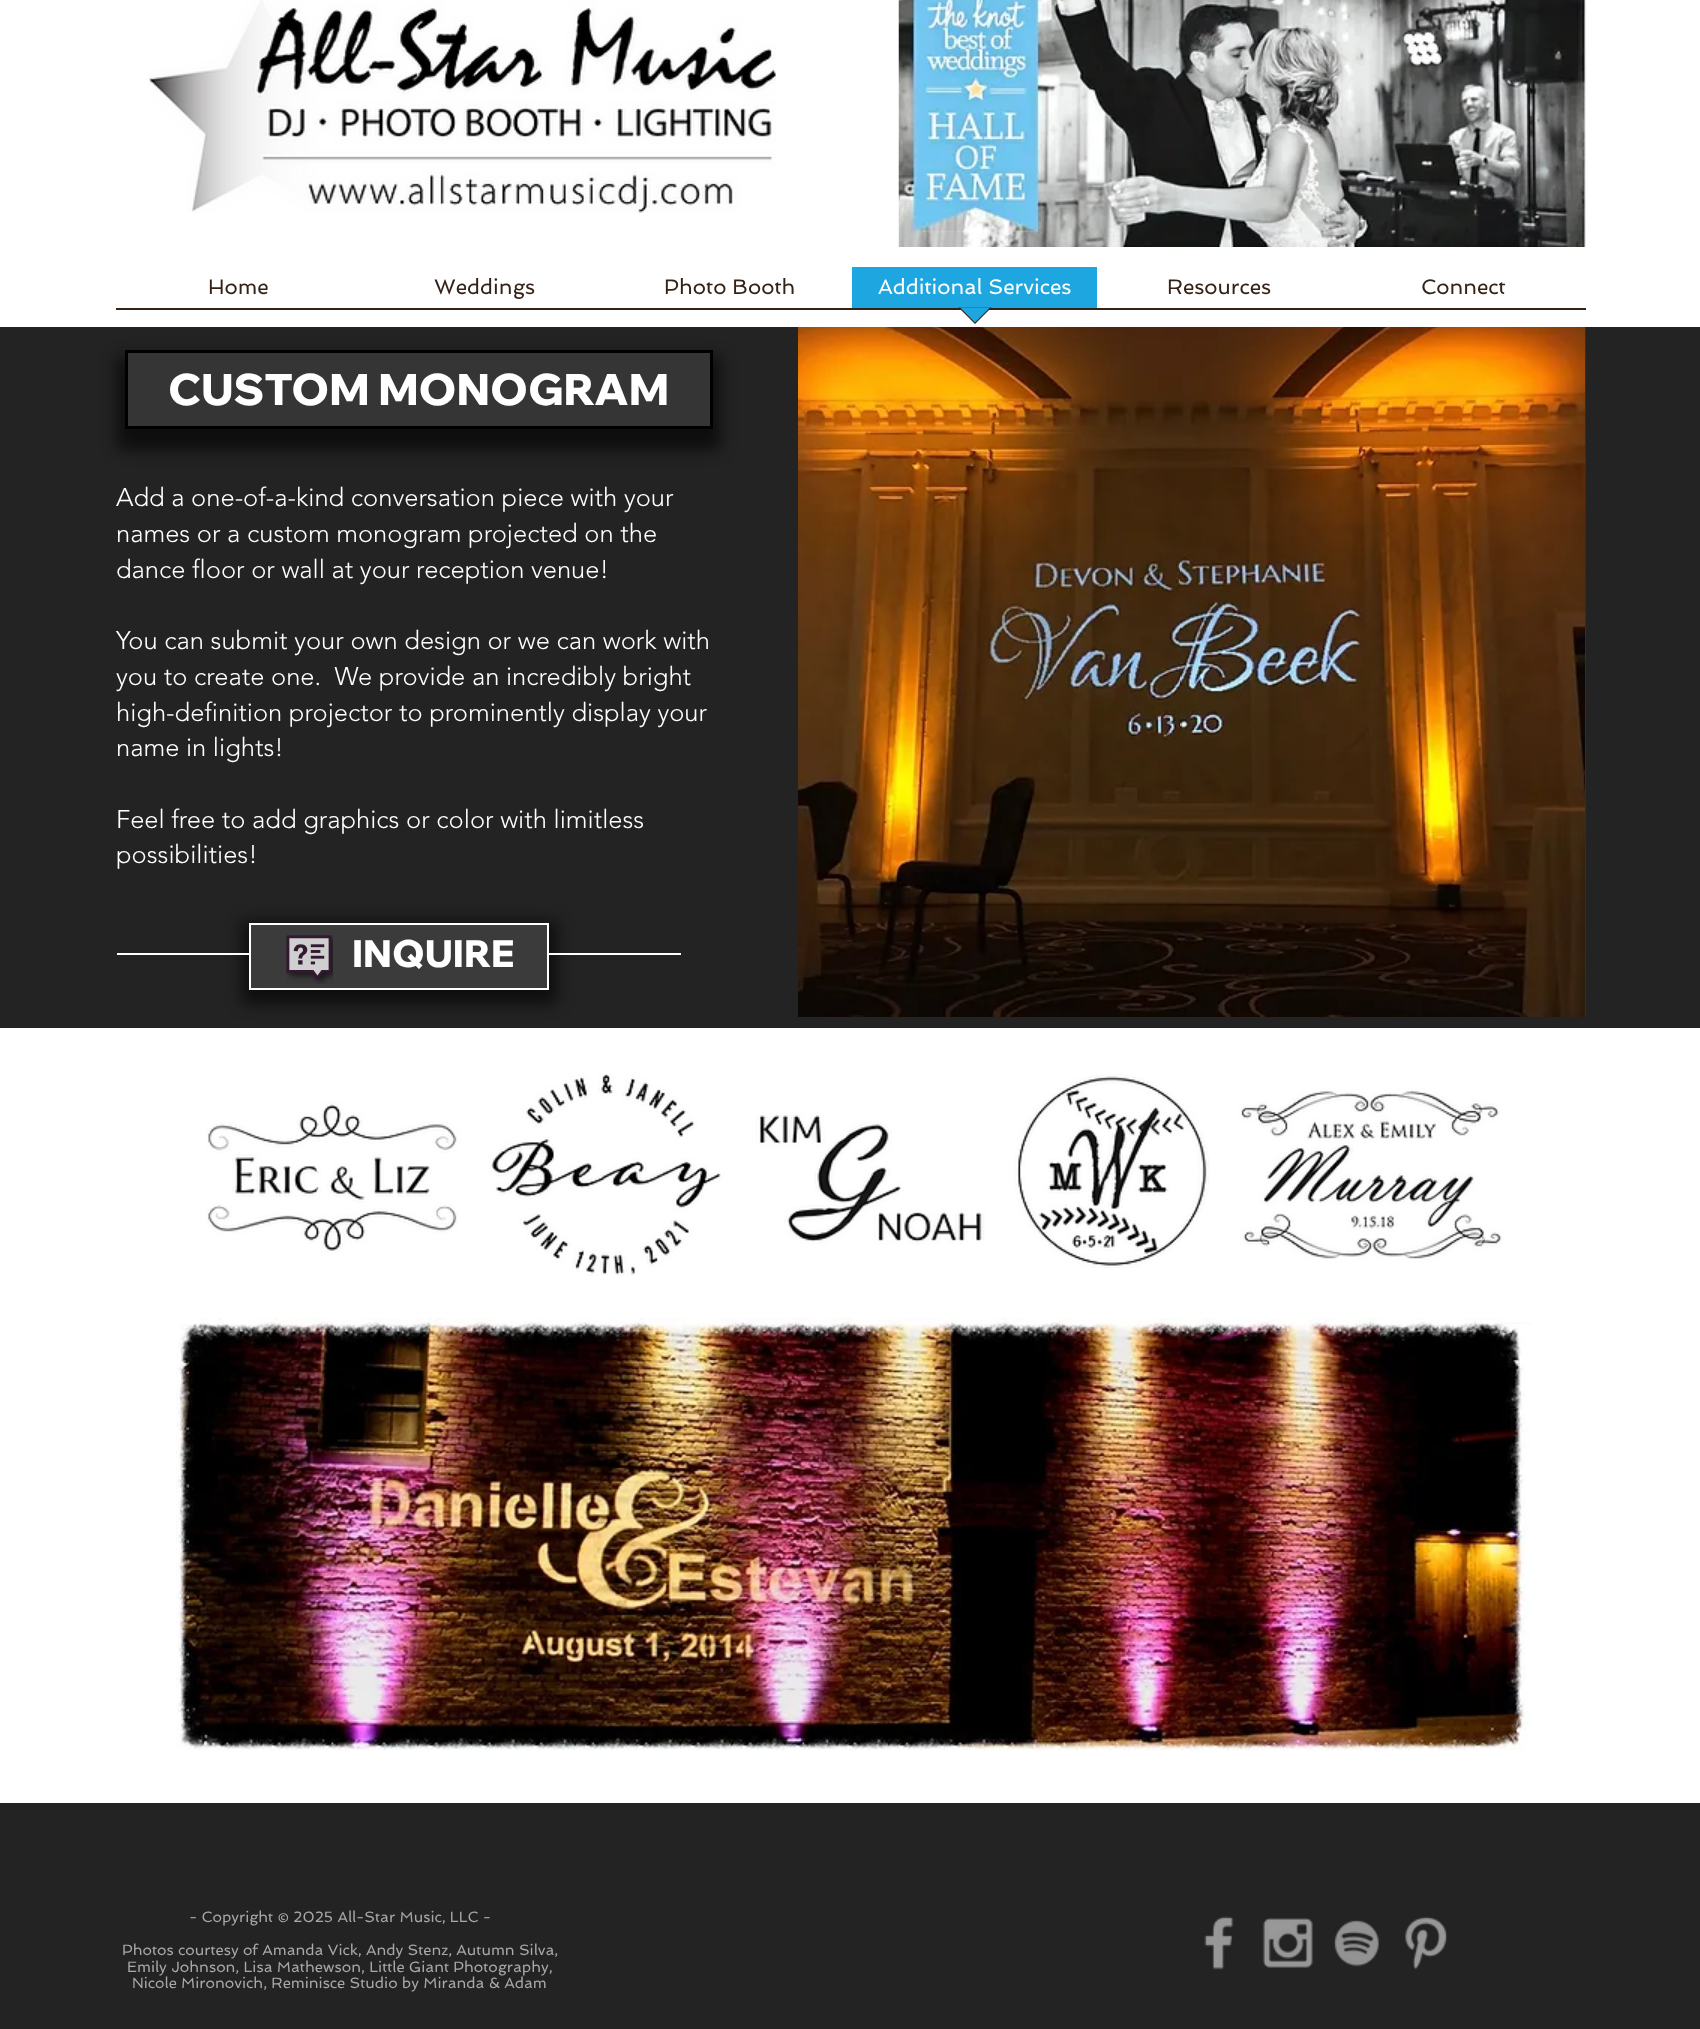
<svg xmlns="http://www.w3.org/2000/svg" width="1700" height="2029">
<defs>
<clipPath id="clip1"><path d="M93 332h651v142h-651zm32 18h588v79h-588z" clip-rule="evenodd"/></clipPath>
</defs>
<rect width="100%" height="100%" fill="#fff"/>
<image x="148" y="0" width="628" height="213" href="media/1.png"/>
<image x="898" y="0" width="688" height="247" href="media/2.png"/>
<text x="208" y="294" style="font-family:Spinnaker;font-size:21px;fill:#342216">Home</text>
<text x="434" y="294" style="font-family:Spinnaker;font-size:21px;fill:#342216">Weddings</text>
<text x="664" y="294" style="font-family:Spinnaker;font-size:21px;fill:#342216">Photo Booth</text>
<rect x="852" y="267" width="245" height="41" fill="#1da6e0"/>
<text x="878" y="294" style="font-family:Spinnaker;font-size:21px;fill:#fff">Additional Services</text>
<rect x="116" y="308" width="1470" height="2" fill="#342216"/>
<path d="M958.5 307.5h33l-16.5 16.5z" fill="#342216"/>
<path d="M960 307.5h30l-15 15z" fill="#1da6e0"/>
<text x="1167" y="294" style="font-family:Spinnaker;font-size:21px;fill:#342216">Resources</text>
<text x="1421" y="294" style="font-family:Spinnaker;font-size:21px;fill:#342216">Connect</text>
<rect y="327" width="1700" height="701" fill="#242323"/>
<g clip-path="url(#clip1)">
<rect x="117" y="356" width="603" height="94" fill="#00000099" filter="blur(7.5px)"/>
</g>
<rect x="126.5" y="351.5" width="585" height="76" fill="#6060604d" stroke="#000" stroke-width="3"/>
<text x="168" y="405" style="font-family:Wix Madefor Display;font-size:43.5px;font-weight:800;fill:#fff">CUSTOM MONOGRAM</text>
<rect x="1585" y="327" width="1" height="690" fill="#2f2e2e"/>
<image x="798" y="327" width="787" height="690" href="media/3.png"/>
<text x="116" y="506" style="font-family:'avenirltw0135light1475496';font-size:25.5px;font-weight:300;fill:#fff">Add a one-of-a-kind conversation piece with your</text>
<text x="116" y="542" style="font-family:'avenirltw0135light1475496';font-size:25.5px;font-weight:300;fill:#fff">names or a custom monogram projected on the</text>
<text x="116" y="578" style="font-family:'avenirltw0135light1475496';font-size:25.5px;font-weight:300;fill:#fff">dance floor or wall at your reception venue!</text>
<text x="116" y="649" style="font-family:'avenirltw0135light1475496';font-size:25.5px;font-weight:300;fill:#fff">You can submit your own design or we can work with</text>
<text x="116" y="685" style="font-family:'avenirltw0135light1475496';font-size:25.5px;font-weight:300;fill:#fff" xml:space="preserve">you to create one.  We provide an incredibly bright</text>
<text x="116" y="721" style="font-family:'avenirltw0135light1475496';font-size:25.5px;font-weight:300;fill:#fff">high-definition projector to prominently display your</text>
<text x="116" y="756" style="font-family:'avenirltw0135light1475496';font-size:25.5px;font-weight:300;fill:#fff">name in lights!</text>
<text x="116" y="828" style="font-family:'avenirltw0135light1475496';font-size:25.5px;font-weight:300;fill:#fff">Feel free to add graphics or color with limitless</text>
<text x="116" y="863" style="font-family:'avenirltw0135light1475496';font-size:25.5px;font-weight:300;fill:#fff">possibilities!</text>
<rect x="242" y="921" width="315" height="83" fill="#00000099" filter="blur(7.5px)"/>
<rect x="250" y="924" width="298" height="65" fill="#3c3b3b" stroke="#fff" stroke-width="2"/>
<rect x="117" y="953" width="132" height="2" fill="#fff"/>
<image x="286" y="935" width="47" height="49" href="media/4.png"/>
<text x="352" y="967" style="font-family:Wix Madefor Display;font-size:37.5px;font-weight:800;fill:#fff">INQUIRE</text>
<rect x="549" y="953" width="132" height="2" fill="#fff"/>
<image x="206" y="1074" width="1296" height="202" href="media/5.png"/>
<image x="176" y="1318" width="1355" height="433" href="media/6.png"/>
<rect y="1803" width="1700" height="226" fill="#242323"/>
<text x="189" y="1922" style="font-family:Spinnaker;font-size:15px;fill:#a8a8a8">- Copyright © 2025 All-Star Music, LLC -</text>
<text x="122" y="1955" style="font-family:Spinnaker;font-size:15px;fill:#a8a8a8">Photos courtesy of Amanda Vick, Andy Stenz, Autumn Silva,</text>
<text x="127" y="1972" style="font-family:Spinnaker;font-size:15px;fill:#a8a8a8">Emily Johnson, Lisa Mathewson, Little Giant Photography,</text>
<text x="132" y="1988" style="font-family:Spinnaker;font-size:15px;fill:#a8a8a8">Nicole Mironovich, Reminisce Studio by Miranda &amp; Adam</text>
<image x="1204" y="1916" width="30" height="54" href="media/7.png"/>
<image x="1262" y="1918" width="51" height="50" href="media/8.png"/>
<image x="1334" y="1920" width="45" height="47" href="media/9.png"/>
<image x="1405" y="1916" width="42" height="54" href="media/10.png"/>
</svg>
